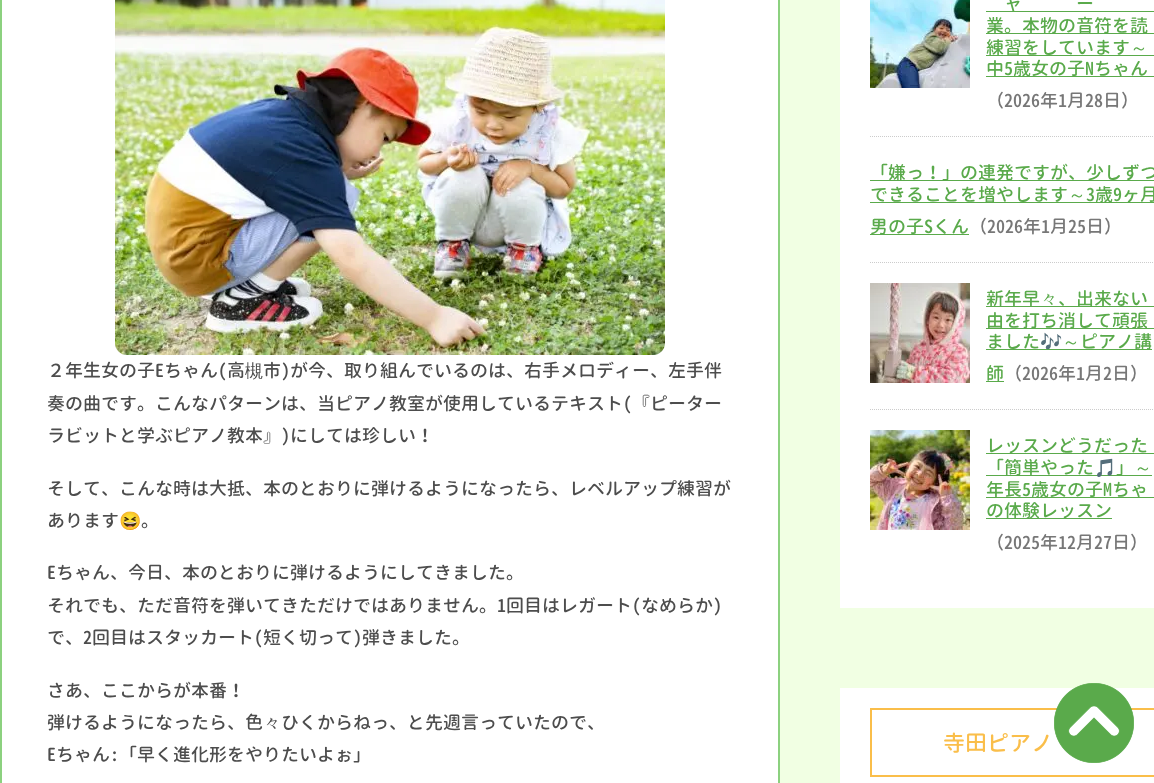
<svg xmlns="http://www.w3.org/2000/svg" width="1154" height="783">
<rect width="100%" height="100%" fill="#f1ffe3"/>
<rect x="1" y="-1" width="778" height="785" fill="#fff" stroke="#8cd17f" stroke-width="2"/>
<image x="115" y="0" width="550" height="355" href="media/1.png"/>
<text x="47" y="377" style="font-family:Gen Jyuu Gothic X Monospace;font-size:18px;font-weight:500;fill:#4d4d4d">２年生女の子Eちゃん(高</text>
<text x="245" y="377" style="font-family:WenQuanYi Zen Hei;font-size:18px;font-weight:500;fill:#4d4d4d">槻</text>
<text x="263" y="377" style="font-family:Gen Jyuu Gothic X Monospace;font-size:18px;font-weight:500;fill:#4d4d4d">市)が今、取り組んでいるのは、右手メロディー、左手伴</text>
<text x="47" y="410" style="font-family:Gen Jyuu Gothic X Monospace;font-size:18px;font-weight:500;fill:#4d4d4d">奏の曲です。こんなパターンは、当ピアノ教室が使用しているテキスト(『ピーター</text>
<text x="47" y="442" style="font-family:Gen Jyuu Gothic X Monospace;font-size:18px;font-weight:500;fill:#4d4d4d">ラビットと学ぶピアノ教本』)にしては珍しい！</text>
<text x="47" y="495" style="font-family:Gen Jyuu Gothic X Monospace;font-size:18px;font-weight:500;fill:#4d4d4d">そして、こんな時は大抵、本のとおりに弾けるようになったら、レベルアップ練習が</text>
<text x="47" y="527" style="font-family:Gen Jyuu Gothic X Monospace;font-size:18px;font-weight:500;fill:#4d4d4d">あります</text>
<text x="119" y="527" style="font-family:Noto Color Emoji;font-size:18px;fill:#4d4d4d">😆</text>
<text x="141" y="527" style="font-family:Gen Jyuu Gothic X Monospace;font-size:18px;font-weight:500;fill:#4d4d4d">。</text>
<text x="47" y="579" style="font-family:Gen Jyuu Gothic X Monospace;font-size:18px;font-weight:500;fill:#4d4d4d">Eちゃん、今日、本のとおりに弾けるようにしてきました。</text>
<text x="47" y="612" style="font-family:Gen Jyuu Gothic X Monospace;font-size:18px;font-weight:500;fill:#4d4d4d">それでも、ただ音符を弾いてきただけではありません。1回目はレガート(なめらか)</text>
<text x="47" y="644" style="font-family:Gen Jyuu Gothic X Monospace;font-size:18px;font-weight:500;fill:#4d4d4d">で、2回目はスタッカート(短く切って)弾きました。</text>
<text x="47" y="697" style="font-family:Gen Jyuu Gothic X Monospace;font-size:18px;font-weight:500;fill:#4d4d4d">さあ、ここからが本番！</text>
<text x="47" y="729" style="font-family:Gen Jyuu Gothic X Monospace;font-size:18px;font-weight:500;fill:#4d4d4d">弾けるようになったら、色</text>
<text x="263" y="729" style="font-family:WenQuanYi Zen Hei;font-size:18px;font-weight:500;fill:#4d4d4d">々</text>
<text x="281" y="729" style="font-family:Gen Jyuu Gothic X Monospace;font-size:18px;font-weight:500;fill:#4d4d4d">ひくからねっ、と先週言っていたので、</text>
<text x="47" y="761" style="font-family:Gen Jyuu Gothic X Monospace;font-size:18px;font-weight:500;fill:#4d4d4d">Eちゃん:「早く進化形をやりたいよぉ」</text>
<rect x="840" width="314" height="608" fill="#fff"/>
<path d="M870 136.5h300" fill="none" stroke="#ccc" stroke-dasharray="1 1"/>
<image x="870" y="0" width="100" height="88" href="media/2.png"/>
<rect x="986" y="11" width="168" height="1" fill="#5aaa4b"/>
<text x="1004" y="10" style="font-family:Gen Jyuu Gothic X Monospace;font-size:18px;font-weight:500;fill:#5aaa4b">ャ</text>
<text x="1076" y="10" style="font-family:Gen Jyuu Gothic X Monospace;font-size:18px;font-weight:500;fill:#5aaa4b">ー</text>
<rect x="986" y="33" width="168" height="1" fill="#5aaa4b"/>
<text x="986" y="32" style="font-family:Gen Jyuu Gothic X Monospace;font-size:18px;font-weight:500;fill:#5aaa4b">業。本物の音符を読</text>
<rect x="986" y="55" width="168" height="1" fill="#5aaa4b"/>
<text x="986" y="54" style="font-family:Gen Jyuu Gothic X Monospace;font-size:18px;font-weight:500;fill:#5aaa4b">練習をしています</text>
<text x="1130" y="54" style="font-family:WenQuanYi Zen Hei;font-size:18px;font-weight:500;fill:#5aaa4b">～</text>
<rect x="986" y="76" width="168" height="1" fill="#5aaa4b"/>
<text x="986" y="75" style="font-family:Gen Jyuu Gothic X Monospace;font-size:18px;font-weight:500;fill:#5aaa4b">中5歳女の子Nちゃん</text>
<text x="986" y="107" style="font-family:Gen Jyuu Gothic X Monospace;font-size:18px;font-weight:500;fill:#777">（2026年1月28日）</text>
<path d="M870 262.5h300" fill="none" stroke="#ccc" stroke-dasharray="1 1"/>
<rect x="870" y="180" width="284" height="1" fill="#5aaa4b"/>
<text x="870" y="179" style="font-family:Gen Jyuu Gothic X Monospace;font-size:18px;font-weight:500;fill:#5aaa4b">「嫌っ！」の連発ですが、少しずつ</text>
<rect x="870" y="202" width="284" height="1" fill="#5aaa4b"/>
<text x="870" y="201" style="font-family:Gen Jyuu Gothic X Monospace;font-size:18px;font-weight:500;fill:#5aaa4b">できることを増やします</text>
<text x="1068" y="201" style="font-family:WenQuanYi Zen Hei;font-size:18px;font-weight:500;fill:#5aaa4b">～</text>
<text x="1086" y="201" style="font-family:Gen Jyuu Gothic X Monospace;font-size:18px;font-weight:500;fill:#5aaa4b">3歳9ヶ月</text>
<rect x="870" y="234" width="99" height="1" fill="#5aaa4b"/>
<text x="870" y="233" style="font-family:Gen Jyuu Gothic X Monospace;font-size:18px;font-weight:500;fill:#5aaa4b">男の子Sくん</text>
<text x="969" y="233" style="font-family:Gen Jyuu Gothic X Monospace;font-size:18px;font-weight:500;fill:#777">（2026年1月25日）</text>
<path d="M870 409.5h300" fill="none" stroke="#ccc" stroke-dasharray="1 1"/>
<image x="870" y="283" width="100" height="100" href="media/3.png"/>
<rect x="986" y="306" width="168" height="1" fill="#5aaa4b"/>
<text x="986" y="305" style="font-family:Gen Jyuu Gothic X Monospace;font-size:18px;font-weight:500;fill:#5aaa4b">新年早</text>
<text x="1040" y="305" style="font-family:WenQuanYi Zen Hei;font-size:18px;font-weight:500;fill:#5aaa4b">々</text>
<text x="1058" y="305" style="font-family:Gen Jyuu Gothic X Monospace;font-size:18px;font-weight:500;fill:#5aaa4b">、出来ない</text>
<rect x="986" y="328" width="168" height="1" fill="#5aaa4b"/>
<text x="986" y="327" style="font-family:Gen Jyuu Gothic X Monospace;font-size:18px;font-weight:500;fill:#5aaa4b">由を打ち消して頑張</text>
<text x="986" y="348" style="font-family:Gen Jyuu Gothic X Monospace;font-size:18px;font-weight:500;fill:#5aaa4b">ました</text>
<rect x="986" y="349" width="166" height="1" fill="#5aaa4b"/>
<text x="1040" y="348" style="font-family:Noto Color Emoji;font-size:18px;fill:#5aaa4b">🎶</text>
<text x="1062" y="348" style="font-family:WenQuanYi Zen Hei;font-size:18px;font-weight:500;fill:#5aaa4b">～</text>
<text x="1080" y="348" style="font-family:Gen Jyuu Gothic X Monospace;font-size:18px;font-weight:500;fill:#5aaa4b">ピアノ講</text>
<rect x="986" y="381" width="18" height="1" fill="#5aaa4b"/>
<text x="986" y="380" style="font-family:Gen Jyuu Gothic X Monospace;font-size:18px;font-weight:500;fill:#5aaa4b">師</text>
<text x="1004" y="380" style="font-family:Gen Jyuu Gothic X Monospace;font-size:18px;font-weight:500;fill:#777">（2026年1月2日）</text>
<image x="870" y="430" width="100" height="100" href="media/4.png"/>
<rect x="986" y="453" width="168" height="1" fill="#5aaa4b"/>
<text x="986" y="452" style="font-family:Gen Jyuu Gothic X Monospace;font-size:18px;font-weight:500;fill:#5aaa4b">レッスンどうだった</text>
<rect x="986" y="475" width="166" height="1" fill="#5aaa4b"/>
<text x="986" y="474" style="font-family:Gen Jyuu Gothic X Monospace;font-size:18px;font-weight:500;fill:#5aaa4b">「簡単やった</text>
<text x="1094" y="474" style="font-family:Noto Color Emoji;font-size:18px;fill:#5aaa4b">🎵</text>
<text x="1116" y="474" style="font-family:Gen Jyuu Gothic X Monospace;font-size:18px;font-weight:500;fill:#5aaa4b">」</text>
<text x="1134" y="474" style="font-family:WenQuanYi Zen Hei;font-size:18px;font-weight:500;fill:#5aaa4b">～</text>
<rect x="986" y="497" width="168" height="1" fill="#5aaa4b"/>
<text x="986" y="496" style="font-family:Gen Jyuu Gothic X Monospace;font-size:18px;font-weight:500;fill:#5aaa4b">年長5歳女の子Mちゃ</text>
<rect x="986" y="518" width="126" height="1" fill="#5aaa4b"/>
<text x="986" y="517" style="font-family:Gen Jyuu Gothic X Monospace;font-size:18px;font-weight:500;fill:#5aaa4b">の体験レッスン</text>
<text x="986" y="549" style="font-family:Gen Jyuu Gothic X Monospace;font-size:18px;font-weight:500;fill:#777">（2025年12月27日）</text>
<rect x="840" y="688" width="314" height="95" fill="#fff"/>
<rect x="871" y="709" width="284" height="67" fill="none" stroke="#fabe4a" stroke-width="2"/>
<text x="943" y="751" style="font-family:Gen Jyuu Gothic X Monospace;font-size:22px;font-weight:500;fill:#fabe4a">寺田ピアノ</text>
<image x="1054" y="683" width="80" height="80" href="media/5.png"/>
</svg>
